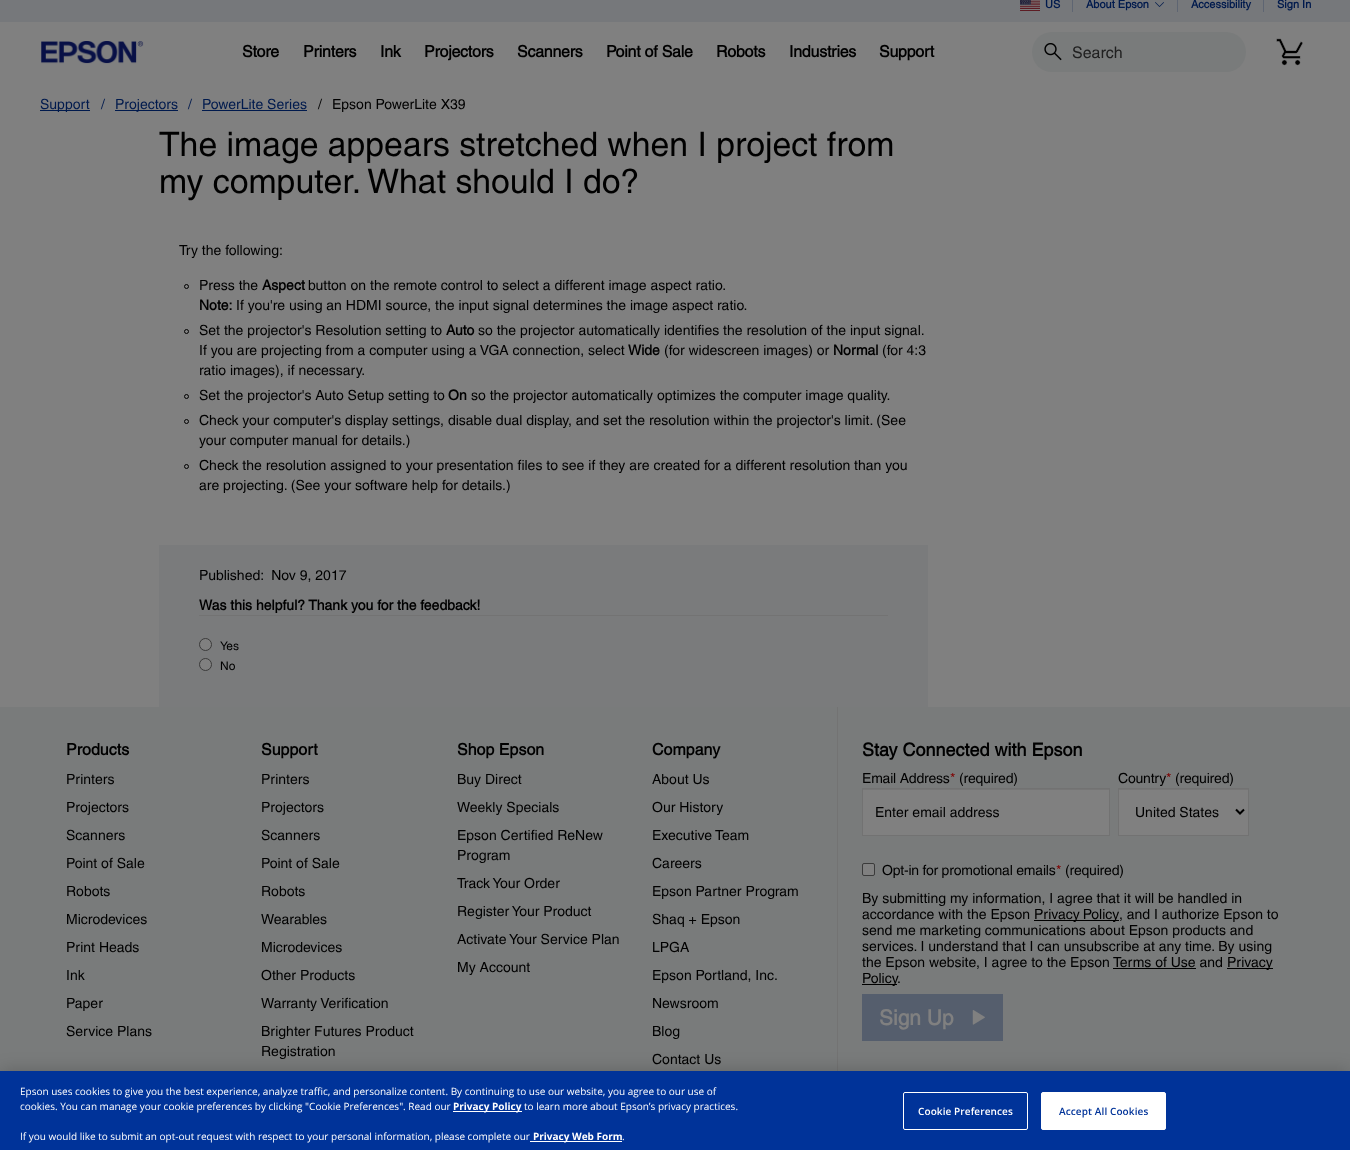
<svg xmlns="http://www.w3.org/2000/svg" width="1350" height="1150">
<rect width="100%" height="100%" fill="#808080"/>
<rect width="1350" height="22" fill="#76787b"/>
<image x="1020" y="0" width="20" height="11" href="media/1.png"/>
<text x="1045" y="8" style="font-family:Helvetica;font-size:11px;font-weight:bold;fill:#001a4d">US</text>
<rect x="1072" width="1" height="12" fill="#5e6572"/>
<text x="1086" y="8" style="font-family:Helvetica;font-size:11px;font-weight:bold;fill:#001a4d">About Epson</text>
<image x="1155" y="2" width="9" height="5" href="media/2.png"/>
<rect x="1177" width="1" height="12" fill="#5e6572"/>
<text x="1191" y="8" style="font-family:Helvetica;font-size:11px;font-weight:bold;fill:#001a4d">Accessibility</text>
<rect x="1263" width="1" height="12" fill="#5e6572"/>
<text x="1277" y="8" style="font-family:Helvetica;font-size:11px;font-weight:bold;fill:#001a4d">Sign In</text>
<image x="41" y="41" width="103" height="23" href="media/3.png"/>
<text x="242" y="57" style="font-family:Helvetica;font-size:16px;font-weight:bold;letter-spacing:-0.25px;fill:#000">Store</text>
<text x="303" y="57" style="font-family:Helvetica;font-size:16px;font-weight:bold;letter-spacing:-0.25px;fill:#000">Printers</text>
<text x="380" y="57" style="font-family:Helvetica;font-size:16px;font-weight:bold;letter-spacing:-0.25px;fill:#000">Ink</text>
<text x="424" y="57" style="font-family:Helvetica;font-size:16px;font-weight:bold;letter-spacing:-0.25px;fill:#000">Projectors</text>
<text x="517" y="57" style="font-family:Helvetica;font-size:16px;font-weight:bold;letter-spacing:-0.25px;fill:#000">Scanners</text>
<text x="606" y="57" style="font-family:Helvetica;font-size:16px;font-weight:bold;letter-spacing:-0.25px;fill:#000">Point of Sale</text>
<text x="716" y="57" style="font-family:Helvetica;font-size:16px;font-weight:bold;letter-spacing:-0.25px;fill:#000">Robots</text>
<text x="789" y="57" style="font-family:Helvetica;font-size:16px;font-weight:bold;letter-spacing:-0.25px;fill:#000">Industries</text>
<text x="879" y="57" style="font-family:Helvetica;font-size:16px;font-weight:bold;letter-spacing:-0.25px;fill:#000">Support</text>
<rect x="1032" y="32" width="214" height="40" rx="20" fill="#797b7b"/>
<image x="1044" y="43" width="18" height="18" href="media/4.png"/>
<text x="1072" y="58" style="font-family:Helvetica;font-size:16px;fill:#202020">Search</text>
<image x="1276" y="38" width="27" height="28" href="media/5.png"/>
<rect x="40" y="110" width="50" height="1" fill="#001a4d"/>
<text x="40" y="109" style="font-family:Helvetica;font-size:14px;fill:#001a4d">Support</text>
<text x="101" y="109" style="font-family:Helvetica;font-size:14px;fill:#001a4d">/</text>
<rect x="115" y="110" width="63" height="1" fill="#001a4d"/>
<text x="115" y="109" style="font-family:Helvetica;font-size:14px;fill:#001a4d">Projectors</text>
<text x="188" y="109" style="font-family:Helvetica;font-size:14px;fill:#001a4d">/</text>
<text x="202" y="109" style="font-family:Helvetica;font-size:14px;fill:#001a4d">PowerLite Series</text>
<rect x="202" y="110" width="105" height="1" fill="#001a4d"/>
<text x="318" y="109" style="font-family:Helvetica;font-size:14px;fill:#000">/</text>
<text x="332" y="109" style="font-family:Helvetica;font-size:14px;fill:#000">Epson PowerLite X39</text>
<text x="159" y="156" style="font-family:Helvetica;font-size:33.75px;fill:#000">The image appears stretched when I project from</text>
<text x="159" y="193" style="font-family:Helvetica;font-size:33.75px;fill:#000">my computer. What should I do?</text>
<text x="179" y="255" style="font-family:Helvetica;font-size:14px;fill:#000">Try the following:</text>
<circle cx="186.5" cy="286.5" r="2" fill="none" stroke="#000"/>
<text x="199" y="290" style="font-family:Helvetica;font-size:14px;fill:#000">Press the</text>
<text x="262" y="290" style="font-family:Helvetica;font-size:14px;font-weight:bold;fill:#000">Aspect</text>
<text x="308" y="290" style="font-family:Helvetica;font-size:14px;fill:#000">button on the remote control to select a different image aspect ratio.</text>
<text x="199" y="310" style="font-family:Helvetica;font-size:14px;font-weight:bold;fill:#000">Note:</text>
<text x="236" y="310" style="font-family:Helvetica;font-size:14px;fill:#000">If you're using an HDMI source, the input signal determines the image aspect ratio.</text>
<circle cx="186.5" cy="331.5" r="2" fill="none" stroke="#000"/>
<text x="199" y="335" style="font-family:Helvetica;font-size:14px;fill:#000">Set the projector's Resolution setting to</text>
<text x="446" y="335" style="font-family:Helvetica;font-size:14px;font-weight:bold;fill:#000">Auto</text>
<text x="478" y="335" style="font-family:Helvetica;font-size:14px;fill:#000">so the projector automatically identifies the resolution of the input signal.</text>
<text x="199" y="355" style="font-family:Helvetica;font-size:14px;fill:#000">If you are projecting from a computer using a VGA connection, select</text>
<text x="628" y="355" style="font-family:Helvetica;font-size:14px;font-weight:bold;fill:#000">Wide</text>
<text x="664" y="355" style="font-family:Helvetica;font-size:14px;fill:#000">(for widescreen images) or</text>
<text x="833" y="355" style="font-family:Helvetica;font-size:14px;font-weight:bold;fill:#000">Normal</text>
<text x="882" y="355" style="font-family:Helvetica;font-size:14px;fill:#000">(for 4:3</text>
<text x="199" y="375" style="font-family:Helvetica;font-size:14px;fill:#000">ratio images), if necessary.</text>
<circle cx="186.5" cy="396.5" r="2" fill="none" stroke="#000"/>
<text x="199" y="400" style="font-family:Helvetica;font-size:14px;fill:#000">Set the projector's Auto Setup setting to</text>
<text x="448" y="400" style="font-family:Helvetica;font-size:14px;font-weight:bold;fill:#000">On</text>
<text x="471" y="400" style="font-family:Helvetica;font-size:14px;fill:#000">so the projector automatically optimizes the computer image quality.</text>
<circle cx="186.5" cy="421.5" r="2" fill="none" stroke="#000"/>
<text x="199" y="425" style="font-family:Helvetica;font-size:14px;fill:#000">Check your computer's display settings, disable dual display, and set the resolution within the projector's limit. (See</text>
<text x="199" y="445" style="font-family:Helvetica;font-size:14px;fill:#000">your computer manual for details.)</text>
<circle cx="186.5" cy="466.5" r="2" fill="none" stroke="#000"/>
<text x="199" y="470" style="font-family:Helvetica;font-size:14px;fill:#000">Check the resolution assigned to your presentation files to see if they are created for a different resolution than you</text>
<text x="199" y="490" style="font-family:Helvetica;font-size:14px;fill:#000">are projecting. (See your software help for details.)</text>
<rect x="159" y="545" width="769" height="162" fill="#7a7b7c"/>
<text x="199" y="580" style="font-family:Helvetica;font-size:14px;fill:#000" xml:space="preserve">Published:  Nov 9, 2017</text>
<text x="199" y="610" style="font-family:Helvetica;font-size:14px;font-weight:bold;fill:#000">Was this helpful? Thank you for the feedback!</text>
<rect x="199" y="615" width="689" height="1" fill="#737373"/>
<circle cx="205.5" cy="644.5" r="6" fill="#808080" stroke="#3b3b3b"/>
<text x="220" y="650" style="font-family:Helvetica;font-size:12px;fill:#000">Yes</text>
<circle cx="205.5" cy="664.5" r="6" fill="#808080" stroke="#3b3b3b"/>
<text x="220" y="670" style="font-family:Helvetica;font-size:12px;fill:#000">No</text>
<rect y="707" width="1350" height="364" fill="#797b7b"/>
<text x="66" y="755" style="font-family:Helvetica;font-size:16px;font-weight:bold;fill:#000">Products</text>
<text x="66" y="784" style="font-family:Helvetica;font-size:14px;fill:#000">Printers</text>
<text x="66" y="812" style="font-family:Helvetica;font-size:14px;fill:#000">Projectors</text>
<text x="66" y="840" style="font-family:Helvetica;font-size:14px;fill:#000">Scanners</text>
<text x="66" y="868" style="font-family:Helvetica;font-size:14px;fill:#000">Point of Sale</text>
<text x="66" y="896" style="font-family:Helvetica;font-size:14px;fill:#000">Robots</text>
<text x="66" y="924" style="font-family:Helvetica;font-size:14px;fill:#000">Microdevices</text>
<text x="66" y="952" style="font-family:Helvetica;font-size:14px;fill:#000">Print Heads</text>
<text x="66" y="980" style="font-family:Helvetica;font-size:14px;fill:#000">Ink</text>
<text x="66" y="1008" style="font-family:Helvetica;font-size:14px;fill:#000">Paper</text>
<text x="66" y="1036" style="font-family:Helvetica;font-size:14px;fill:#000">Service Plans</text>
<text x="261" y="755" style="font-family:Helvetica;font-size:16px;font-weight:bold;fill:#000">Support</text>
<text x="261" y="784" style="font-family:Helvetica;font-size:14px;fill:#000">Printers</text>
<text x="261" y="812" style="font-family:Helvetica;font-size:14px;fill:#000">Projectors</text>
<text x="261" y="840" style="font-family:Helvetica;font-size:14px;fill:#000">Scanners</text>
<text x="261" y="868" style="font-family:Helvetica;font-size:14px;fill:#000">Point of Sale</text>
<text x="261" y="896" style="font-family:Helvetica;font-size:14px;fill:#000">Robots</text>
<text x="261" y="924" style="font-family:Helvetica;font-size:14px;fill:#000">Wearables</text>
<text x="261" y="952" style="font-family:Helvetica;font-size:14px;fill:#000">Microdevices</text>
<text x="261" y="980" style="font-family:Helvetica;font-size:14px;fill:#000">Other Products</text>
<text x="261" y="1008" style="font-family:Helvetica;font-size:14px;fill:#000">Warranty Verification</text>
<text x="261" y="1036" style="font-family:Helvetica;font-size:14px;fill:#000">Brighter Futures Product</text>
<text x="261" y="1056" style="font-family:Helvetica;font-size:14px;fill:#000">Registration</text>
<text x="457" y="755" style="font-family:Helvetica;font-size:16px;font-weight:bold;fill:#000">Shop Epson</text>
<text x="457" y="784" style="font-family:Helvetica;font-size:14px;fill:#000">Buy Direct</text>
<text x="457" y="812" style="font-family:Helvetica;font-size:14px;fill:#000">Weekly Specials</text>
<text x="457" y="840" style="font-family:Helvetica;font-size:14px;fill:#000">Epson Certified ReNew</text>
<text x="457" y="860" style="font-family:Helvetica;font-size:14px;fill:#000">Program</text>
<text x="457" y="888" style="font-family:Helvetica;font-size:14px;fill:#000">Track Your Order</text>
<text x="457" y="916" style="font-family:Helvetica;font-size:14px;fill:#000">Register Your Product</text>
<text x="457" y="944" style="font-family:Helvetica;font-size:14px;fill:#000">Activate Your Service Plan</text>
<text x="457" y="972" style="font-family:Helvetica;font-size:14px;fill:#000">My Account</text>
<text x="652" y="755" style="font-family:Helvetica;font-size:16px;font-weight:bold;fill:#000">Company</text>
<text x="652" y="784" style="font-family:Helvetica;font-size:14px;fill:#000">About Us</text>
<text x="652" y="812" style="font-family:Helvetica;font-size:14px;fill:#000">Our History</text>
<text x="652" y="840" style="font-family:Helvetica;font-size:14px;fill:#000">Executive Team</text>
<text x="652" y="868" style="font-family:Helvetica;font-size:14px;fill:#000">Careers</text>
<text x="652" y="896" style="font-family:Helvetica;font-size:14px;fill:#000">Epson Partner Program</text>
<text x="652" y="924" style="font-family:Helvetica;font-size:14px;fill:#000">Shaq + Epson</text>
<text x="652" y="952" style="font-family:Helvetica;font-size:14px;fill:#000">LPGA</text>
<text x="652" y="980" style="font-family:Helvetica;font-size:14px;fill:#000">Epson Portland, Inc.</text>
<text x="652" y="1008" style="font-family:Helvetica;font-size:14px;fill:#000">Newsroom</text>
<text x="652" y="1036" style="font-family:Helvetica;font-size:14px;fill:#000">Blog</text>
<text x="652" y="1064" style="font-family:Helvetica;font-size:14px;fill:#000">Contact Us</text>
<rect x="837" y="707" width="1" height="364" fill="#737373"/>
<text x="862" y="756" style="font-family:Helvetica;font-size:18px;font-weight:bold;fill:#000">Stay Connected with Epson</text>
<text x="862" y="783" style="font-family:Helvetica;font-size:14px;letter-spacing:-0.2px;fill:#000">Email Address</text>
<text x="950" y="783" style="font-family:Helvetica;font-size:14px;letter-spacing:-0.2px;fill:#800000">*</text>
<text x="959" y="783" style="font-family:Helvetica;font-size:14px;letter-spacing:-0.2px;fill:#000">(required)</text>
<rect x="863" y="790" width="246" height="45" fill="#808080"/>
<rect x="863" y="789" width="246" height="1" fill="#767676"/>
<rect x="862.5" y="788.5" width="247" height="47" fill="none" stroke="#727272"/>
<text x="875" y="817" style="font-family:Helvetica;font-size:14px;fill:#000">Enter email address</text>
<text x="1118" y="783" style="font-family:Helvetica;font-size:14px;letter-spacing:-0.2px;fill:#000">Country</text>
<text x="1166" y="783" style="font-family:Helvetica;font-size:14px;letter-spacing:-0.2px;fill:#800000">*</text>
<text x="1175" y="783" style="font-family:Helvetica;font-size:14px;letter-spacing:-0.2px;fill:#000">(required)</text>
<rect x="1119" y="790" width="129" height="45" fill="#808080"/>
<rect x="1119" y="789" width="129" height="1" fill="#767676"/>
<rect x="1118.5" y="788.5" width="130" height="47" fill="none" stroke="#727272"/>
<path d="M1236 809.5l4 4l4-4" fill="none" stroke="#000" stroke-width="2"/>
<text x="1135" y="817" style="font-family:Helvetica;font-size:14px;fill:#000">United States</text>
<rect x="862.5" y="863.5" width="12" height="12" rx="1.5" fill="#808080" stroke="#3b3b3b"/>
<text x="882" y="875" style="font-family:Helvetica;font-size:14px;letter-spacing:-0.2px;fill:#000">Opt-in for promotional emails</text>
<text x="1056" y="875" style="font-family:Helvetica;font-size:14px;letter-spacing:-0.2px;fill:#800000">*</text>
<text x="1065" y="875" style="font-family:Helvetica;font-size:14px;letter-spacing:-0.2px;fill:#000">(required)</text>
<text x="862" y="903" style="font-family:Helvetica;font-size:14px;fill:#000">By submitting my information, I agree that it will be handled in</text>
<text x="862" y="919" style="font-family:Helvetica;font-size:14px;fill:#000">accordance with the Epson</text>
<rect x="1034" y="920" width="85" height="1" fill="#000"/>
<text x="1034" y="919" word-spacing="-1" style="font-family:Helvetica;font-size:14px;fill:#000">Privacy Policy</text>
<text x="1119" y="919" style="font-family:Helvetica;font-size:14px;fill:#000">, and I authorize Epson to</text>
<text x="862" y="935" style="font-family:Helvetica;font-size:14px;fill:#000">send me marketing communications about Epson products and</text>
<text x="862" y="951" style="font-family:Helvetica;font-size:14px;fill:#000">services. I understand that I can unsubscribe at any time. By using</text>
<text x="862" y="967" style="font-family:Helvetica;font-size:14px;fill:#000">the Epson website, I agree to the Epson Terms of Use and</text>
<rect x="1227" y="968" width="46" height="1" fill="#000"/>
<text x="1227" y="967" style="font-family:Helvetica;font-size:14px;fill:#000">Privacy</text>
<rect x="1113" y="968" width="83" height="1" fill="#000"/>
<rect x="862" y="984" width="35" height="1" fill="#000"/>
<text x="862" y="983" style="font-family:Helvetica;font-size:14px;fill:#000">Policy</text>
<text x="897" y="983" style="font-family:Helvetica;font-size:14px;fill:#000">.</text>
<rect x="862" y="994" width="141" height="47" fill="#555e6d"/>
<text x="879" y="1025" style="font-family:Helvetica;font-size:21px;font-weight:bold;fill:#808080">Sign Up</text>
<image x="972" y="1010" width="13" height="15" href="media/6.png"/>
<rect y="1071" width="1350" height="79" fill="#00000033" filter="blur(9px)"/>
<rect y="1071" width="1350" height="79" fill="#039"/>
<text x="20" y="1095" style="font-family:Open Sans;font-size:10px;fill:#fff">Epson uses cookies to give you the best experience, analyze traffic, and personalize content. By continuing to use our website, you agree to our use of</text>
<text x="20" y="1110" style="font-family:Open Sans;font-size:10px;fill:#fff">cookies. You can manage your cookie preferences by clicking "Cookie Preferences". Read our</text>
<rect x="453" y="1111" width="69" height="1" fill="#fff"/>
<text x="453" y="1110" style="font-family:Open Sans;font-size:10px;font-weight:bold;fill:#fff">Privacy Policy</text>
<text x="524" y="1110" style="font-family:Open Sans;font-size:10px;fill:#fff">to learn more about Epson’s privacy practices.</text>
<text x="20" y="1140" style="font-family:Open Sans;font-size:10px;fill:#fff">If you would like to submit an opt-out request with respect to your personal information, please complete our</text>
<rect x="530" y="1141" width="92" height="1" fill="#fff"/>
<text x="533" y="1140" style="font-family:Open Sans;font-size:10px;font-weight:bold;fill:#fff">Privacy Web Form</text>
<text x="622" y="1140" style="font-family:Open Sans;font-size:10px;fill:#fff">.</text>
<rect x="903.5" y="1092.5" width="124" height="37" rx="1.5" fill="none" stroke="#fff"/>
<text x="918" y="1115" style="font-family:Open Sans;font-size:10px;font-weight:600;letter-spacing:0.1px;fill:#fff">Cookie Preferences</text>
<rect x="1041.5" y="1092.5" width="124" height="37" rx="1.5" fill="#fff" stroke="#fff"/>
<text x="1059" y="1115" style="font-family:Open Sans;font-size:10px;font-weight:600;letter-spacing:0.1px;fill:#039">Accept All Cookies</text>
</svg>
